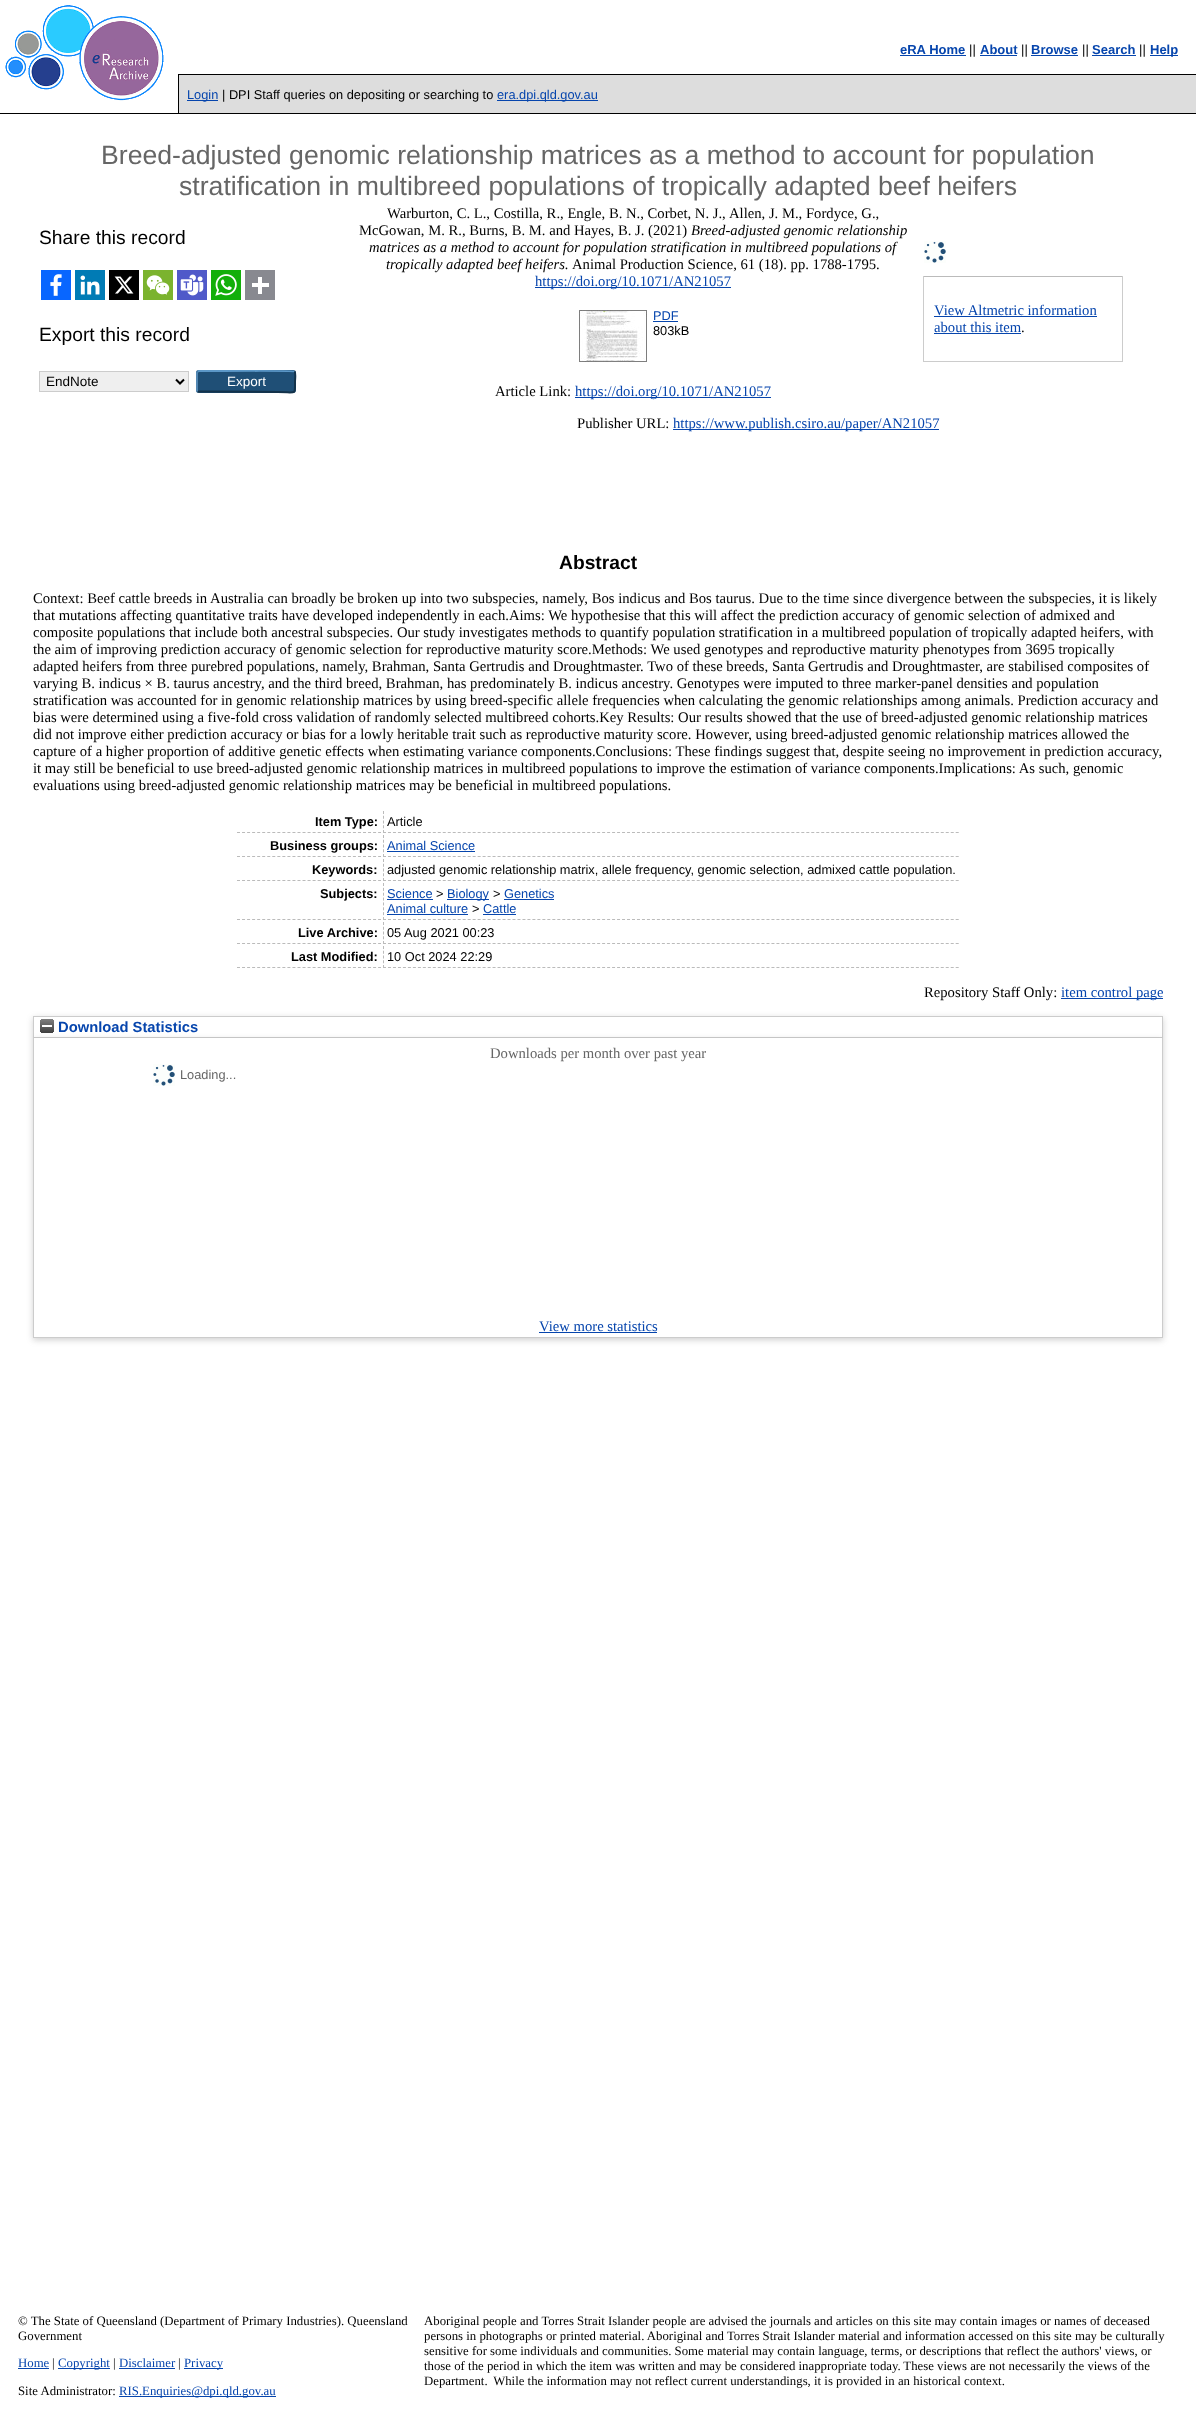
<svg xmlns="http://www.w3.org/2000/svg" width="1196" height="2423">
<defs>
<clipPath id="clip1"><path d="M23 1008h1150v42h-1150zm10 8h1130v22h-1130z" clip-rule="evenodd"/></clipPath>
</defs>
<rect width="100%" height="100%" fill="#fff"/>
<rect y="113" width="1196" height="1" fill="#000"/>
<image x="5" y="5" width="159" height="96" href="media/1.png"/>
<text x="900" y="54" style="font-family:Liberation Sans;font-size:13px;font-weight:bold;fill:#0645ad">eRA Home</text>
<rect x="900" y="55" width="66" height="1" fill="#0645ad"/>
<text x="969" y="54" style="font-family:Liberation Sans;font-size:13px;fill:#000">||</text>
<text x="980" y="54" style="font-family:Liberation Sans;font-size:13px;font-weight:bold;fill:#0645ad">About</text>
<rect x="980" y="55" width="37" height="1" fill="#0645ad"/>
<text x="1021" y="54" style="font-family:Liberation Sans;font-size:13px;fill:#000">||</text>
<text x="1031" y="54" style="font-family:Liberation Sans;font-size:13px;font-weight:bold;fill:#0645ad">Browse</text>
<rect x="1031" y="55" width="47" height="1" fill="#0645ad"/>
<text x="1082" y="54" style="font-family:Liberation Sans;font-size:13px;fill:#000">||</text>
<text x="1092" y="54" style="font-family:Liberation Sans;font-size:13px;font-weight:bold;fill:#0645ad">Search</text>
<rect x="1092" y="55" width="44" height="1" fill="#0645ad"/>
<text x="1139" y="54" style="font-family:Liberation Sans;font-size:13px;fill:#000">||</text>
<rect x="1150" y="55" width="28" height="1" fill="#0645ad"/>
<text x="1150" y="54" style="font-family:Liberation Sans;font-size:13px;font-weight:bold;fill:#0645ad">Help</text>
<rect x="179" y="75" width="1017" height="38" fill="#ddd"/>
<rect x="178" y="74" width="1018" height="1" fill="#000"/>
<rect x="178" y="74" width="1" height="39" fill="#000"/>
<rect x="187" y="100" width="31" height="1" fill="#0645ad"/>
<text x="187" y="99" style="font-family:Liberation Sans;font-size:12.8px;fill:#0645ad">Login</text>
<text x="222" y="99" style="font-family:Liberation Sans;font-size:12.8px;fill:#000">| DPI Staff queries on depositing or searching to</text>
<rect x="497" y="100" width="101" height="1" fill="#0645ad"/>
<text x="497" y="99" style="font-family:Liberation Sans;font-size:12.8px;fill:#0645ad">era.dpi.qld.gov.au</text>
<text x="101" y="164" style="font-family:Liberation Sans;font-size:26.65px;fill:#666">Breed-adjusted genomic relationship matrices as a method to account for population</text>
<text x="179" y="195" style="font-family:Liberation Sans;font-size:26.65px;fill:#666">stratification in multibreed populations of tropically adapted beef heifers</text>
<text x="387" y="218" style="font-family:Liberation Serif;font-size:14.67px;fill:#000">Warburton, C. L., Costilla, R., Engle, B. N., Corbet, N. J.,</text>
<text x="729" y="218" style="font-family:Liberation Serif;font-size:14.67px;fill:#000">Allen, J. M., Fordyce, G.,</text>
<text x="359" y="235" style="font-family:Liberation Serif;font-size:14.67px;fill:#000">McGowan, M. R., Burns, B. M. and Hayes, B. J. (2021)</text>
<text x="691" y="235" style="font-family:Liberation Serif;font-size:14.67px;font-style:italic;fill:#000">Breed-adjusted genomic relationship</text>
<text x="369" y="252" style="font-family:Liberation Serif;font-size:14.67px;font-style:italic;fill:#000">matrices as a method to account for population stratification in multibreed populations of</text>
<text x="386" y="269" style="font-family:Liberation Serif;font-size:14.67px;font-style:italic;fill:#000">tropically adapted beef heifers.</text>
<text x="572" y="269" style="font-family:Liberation Serif;font-size:14.67px;fill:#000">Animal Production Science, 61 (18). pp. 1788-1795.</text>
<rect x="535" y="287" width="196" height="1" fill="#0645ad"/>
<text x="535" y="286" style="font-family:Liberation Serif;font-size:14.67px;fill:#0645ad">https://doi.org/10.1071/AN21057</text>
<image x="579" y="310" width="68" height="52" href="media/2.png"/>
<text x="653" y="320" style="font-family:Liberation Sans;font-size:12.8px;fill:#0645ad">PDF</text>
<rect x="653" y="321" width="25" height="1" fill="#0645ad"/>
<text x="653" y="335" style="font-family:Liberation Sans;font-size:12.8px;fill:#000">803kB</text>
<text x="495" y="396" style="font-family:Liberation Serif;font-size:14.67px;fill:#000">Article Link:</text>
<rect x="575" y="397" width="196" height="1" fill="#0645ad"/>
<text x="575" y="396" style="font-family:Liberation Serif;font-size:14.67px;fill:#0645ad">https://doi.org/10.1071/AN21057</text>
<text x="577" y="428" style="font-family:Liberation Serif;font-size:14.67px;fill:#000">Publisher URL:</text>
<rect x="673" y="429" width="266" height="1" fill="#0645ad"/>
<text x="673" y="428" style="font-family:Liberation Serif;font-size:14.67px;fill:#0645ad">https://www.publish.csiro.au/paper/AN21057</text>
<text x="559" y="569" style="font-family:Liberation Sans;font-size:19.25px;font-weight:bold;fill:#000">Abstract</text>
<text x="33" y="603" style="font-family:Liberation Serif;font-size:14.67px;fill:#000">Context: Beef cattle breeds in Australia can broadly be broken up into two subspecies, namely, Bos indicus and Bos taurus. Due to the time since divergence between the subspecies, it is likely</text>
<text x="33" y="620" style="font-family:Liberation Serif;font-size:14.67px;fill:#000">that mutations affecting quantitative traits have developed independently in each.Aims: We hypothesise that this will affect the prediction accuracy of genomic selection of admixed and</text>
<text x="33" y="637" style="font-family:Liberation Serif;font-size:14.67px;fill:#000">composite populations that include both ancestral subspecies. Our study investigates methods to quantify population stratification in a multibreed population of tropically adapted heifers, with</text>
<text x="33" y="654" style="font-family:Liberation Serif;font-size:14.67px;fill:#000">the aim of improving prediction accuracy of genomic selection for reproductive maturity score.Methods: We used genotypes and reproductive maturity phenotypes from 3695 tropically</text>
<text x="33" y="671" style="font-family:Liberation Serif;font-size:14.67px;fill:#000">adapted heifers from three purebred populations, namely, Brahman, Santa Gertrudis and Droughtmaster. Two of these breeds, Santa Gertrudis and Droughtmaster, are stabilised composites of</text>
<text x="33" y="688" style="font-family:Liberation Serif;font-size:14.67px;fill:#000">varying B. indicus × B. taurus ancestry, and the third breed, Brahman, has predominately B. indicus ancestry. Genotypes were imputed to three marker-panel densities and population</text>
<text x="33" y="705" style="font-family:Liberation Serif;font-size:14.67px;fill:#000">stratification was accounted for in genomic relationship matrices by using breed-specific allele frequencies when calculating the genomic relationships among animals. Prediction accuracy and</text>
<text x="33" y="722" style="font-family:Liberation Serif;font-size:14.67px;fill:#000">bias were determined using a five-fold cross validation of randomly selected multibreed cohorts.Key Results: Our results showed that the use of breed-adjusted genomic relationship matrices</text>
<text x="33" y="739" style="font-family:Liberation Serif;font-size:14.67px;fill:#000">did not improve either prediction accuracy or bias for a lowly heritable trait such as reproductive maturity score. However, using breed-adjusted genomic relationship matrices allowed the</text>
<text x="33" y="756" style="font-family:Liberation Serif;font-size:14.67px;fill:#000">capture of a higher proportion of additive genetic effects when estimating variance components.Conclusions: These findings suggest that, despite seeing no improvement in prediction accuracy,</text>
<text x="33" y="773" style="font-family:Liberation Serif;font-size:14.67px;fill:#000">it may still be beneficial to use breed-adjusted genomic relationship matrices in multibreed populations to improve the estimation of variance components.Implications: As such, genomic</text>
<text x="33" y="790" style="font-family:Liberation Serif;font-size:14.67px;fill:#000">evaluations using breed-adjusted genomic relationship matrices may be beneficial in multibreed populations.</text>
<path d="M237 832.5h144" fill="none" stroke="#bbb" stroke-dasharray="3 2.04"/>
<text x="315" y="826" style="font-family:Liberation Sans;font-size:12.8px;font-weight:bold;fill:#000">Item Type:</text>
<path d="M383 832.5h576" fill="none" stroke="#bbb" stroke-dasharray="3 1.98"/>
<path d="M383.5 811v22" fill="none" stroke="#bbb" stroke-dasharray="3 1.75"/>
<text x="387" y="826" style="font-family:Liberation Sans;font-size:12.8px;fill:#000">Article</text>
<path d="M237 856.5h144" fill="none" stroke="#bbb" stroke-dasharray="3 2.04"/>
<text x="270" y="850" style="font-family:Liberation Sans;font-size:12.8px;font-weight:bold;fill:#000">Business groups:</text>
<path d="M383 856.5h576" fill="none" stroke="#bbb" stroke-dasharray="3 1.98"/>
<path d="M383.5 835v22" fill="none" stroke="#bbb" stroke-dasharray="3 1.75"/>
<text x="387" y="850" style="font-family:Liberation Sans;font-size:12.8px;fill:#0645ad">Animal Science</text>
<rect x="387" y="851" width="88" height="1" fill="#0645ad"/>
<path d="M237 880.5h144" fill="none" stroke="#bbb" stroke-dasharray="3 2.04"/>
<text x="312" y="874" style="font-family:Liberation Sans;font-size:12.8px;font-weight:bold;fill:#000">Keywords:</text>
<path d="M383 880.5h576" fill="none" stroke="#bbb" stroke-dasharray="3 1.98"/>
<path d="M383.5 859v22" fill="none" stroke="#bbb" stroke-dasharray="3 1.75"/>
<text x="387" y="874" style="font-family:Liberation Sans;font-size:12.8px;fill:#000">adjusted genomic relationship matrix, allele frequency, genomic selection, admixed cattle population.</text>
<path d="M237 919.5h144" fill="none" stroke="#bbb" stroke-dasharray="3 2.04"/>
<text x="320" y="898" style="font-family:Liberation Sans;font-size:12.8px;font-weight:bold;fill:#000">Subjects:</text>
<path d="M383 919.5h576" fill="none" stroke="#bbb" stroke-dasharray="3 1.98"/>
<path d="M383.5 883v37" fill="none" stroke="#bbb" stroke-dasharray="3 1.86"/>
<text x="387" y="898" style="font-family:Liberation Sans;font-size:12.8px;fill:#0645ad">Science</text>
<rect x="387" y="899" width="46" height="1" fill="#0645ad"/>
<text x="436" y="898" style="font-family:Liberation Sans;font-size:12.8px;fill:#000">&gt;</text>
<rect x="447" y="899" width="42" height="1" fill="#0645ad"/>
<text x="447" y="898" style="font-family:Liberation Sans;font-size:12.8px;fill:#0645ad">Biology</text>
<text x="493" y="898" style="font-family:Liberation Sans;font-size:12.8px;fill:#000">&gt;</text>
<text x="504" y="898" style="font-family:Liberation Sans;font-size:12.8px;fill:#0645ad">Genetics</text>
<rect x="504" y="899" width="50" height="1" fill="#0645ad"/>
<text x="387" y="913" style="font-family:Liberation Sans;font-size:12.8px;fill:#0645ad">Animal culture</text>
<rect x="387" y="914" width="81" height="1" fill="#0645ad"/>
<text x="472" y="913" style="font-family:Liberation Sans;font-size:12.8px;fill:#000">&gt;</text>
<text x="483" y="913" style="font-family:Liberation Sans;font-size:12.8px;fill:#0645ad">Cattle</text>
<rect x="483" y="914" width="33" height="1" fill="#0645ad"/>
<path d="M237 943.5h144" fill="none" stroke="#bbb" stroke-dasharray="3 2.04"/>
<text x="298" y="937" style="font-family:Liberation Sans;font-size:12.8px;font-weight:bold;fill:#000">Live Archive:</text>
<path d="M383 943.5h576" fill="none" stroke="#bbb" stroke-dasharray="3 1.98"/>
<path d="M383.5 922v22" fill="none" stroke="#bbb" stroke-dasharray="3 1.75"/>
<text x="387" y="937" style="font-family:Liberation Sans;font-size:12.8px;fill:#000">05 Aug 2021 00:23</text>
<path d="M237 967.5h144" fill="none" stroke="#bbb" stroke-dasharray="3 2.04"/>
<text x="291" y="961" style="font-family:Liberation Sans;font-size:12.8px;font-weight:bold;fill:#000">Last Modified:</text>
<path d="M383 967.5h576" fill="none" stroke="#bbb" stroke-dasharray="3 1.98"/>
<path d="M383.5 946v22" fill="none" stroke="#bbb" stroke-dasharray="3 1.75"/>
<text x="387" y="961" style="font-family:Liberation Sans;font-size:12.8px;fill:#000">10 Oct 2024 22:29</text>
<text x="924" y="997" style="font-family:Liberation Serif;font-size:14.67px;fill:#000">Repository Staff Only:</text>
<rect x="1061" y="998" width="102" height="1" fill="#0645ad"/>
<text x="1061" y="997" style="font-family:Liberation Serif;font-size:14.67px;fill:#0645ad">item control page</text>
<text x="39" y="244" style="font-family:Liberation Sans;font-size:19.25px;fill:#000">Share this record</text>
<rect x="41" y="270" width="30" height="30" fill="#0866ff"/>
<rect x="75" y="270" width="30" height="30" fill="#007bb5"/>
<rect x="109" y="270" width="30" height="30" fill="#000"/>
<rect x="143" y="270" width="30" height="30" fill="#7bb32e"/>
<rect x="177" y="270" width="30" height="30" fill="#5059c9"/>
<rect x="211" y="270" width="30" height="30" fill="#12af0a"/>
<rect x="245" y="270" width="30" height="30" fill="#888990"/>
<image x="50" y="274" width="12" height="22" href="media/3.png"/>
<image x="80" y="275" width="20" height="20" href="media/4.png"/>
<image x="114" y="276" width="20" height="18" href="media/5.png"/>
<image x="146" y="275" width="24" height="20" href="media/6.png"/>
<image x="180" y="274" width="24" height="22" href="media/7.png"/>
<image x="215" y="274" width="22" height="22" href="media/8.png"/>
<rect x="258" y="277" width="4" height="17" fill="#fff"/>
<rect x="252" y="283" width="17" height="4" fill="#fff"/>
<text x="39" y="341" style="font-family:Liberation Sans;font-size:19.25px;fill:#000">Export this record</text>
<rect x="39.5" y="371.5" width="149" height="20" fill="#efefef" stroke="#ccc"/>
<path d="M176 379.5l4 4l4-4" fill="none" stroke="#000" stroke-width="2"/>
<text x="46" y="386" style="font-family:Liberation Sans;font-size:13.5px;fill:#000">EndNote</text>
<rect x="196" y="370" width="100" height="23" rx="3" fill="#1f4f76"/>
<path d="M197.5 371.5l1.5-.5h15.5c8.5 0 78.5-.5 80 .5" fill="none" stroke="#5b97c7" stroke-width="2"/>
<path d="M294.5 371.5c1.5 1.5 .5 8 .5 10c0 14.5 1.5 10.5-17.5 10.5l-80-.5" fill="none" stroke="#13324a" stroke-width="2"/>
<path d="M197.5 391.5c-.5-.5-.5-1-.5-1.5v-17c0-.5 0-1 .5-1.5" fill="none" stroke="#5287b3" stroke-width="2"/>
<text x="227" y="386" style="font-family:Liberation Sans;font-size:13.5px;fill:#fff">Export</text>
<image x="924" y="241" width="22" height="22" href="media/9.png"/>
<rect x="923" y="276" width="200" height="1" fill="#bbb"/>
<rect x="1122" y="276" width="1" height="86" fill="#ccc"/>
<rect x="923" y="361" width="200" height="1" fill="#ccc"/>
<rect x="923" y="276" width="1" height="86" fill="#ccc"/>
<text x="934" y="315" style="font-family:Liberation Serif;font-size:14.67px;fill:#0645ad">View Altmetric information</text>
<rect x="934" y="316" width="163" height="1" fill="#0645ad"/>
<text x="934" y="332" style="font-family:Liberation Serif;font-size:14.67px;fill:#0645ad">about this item</text>
<rect x="934" y="333" width="87" height="1" fill="#0645ad"/>
<text x="1021" y="332" style="font-family:Liberation Serif;font-size:14.67px;fill:#000">.</text>
<g clip-path="url(#clip1)">
<rect x="33" y="1018" width="1130" height="22" fill="#6464644d" filter="blur(3px)"/>
</g>
<rect x="33.5" y="1016.5" width="1129" height="21" fill="none" stroke="#ccc"/>
<rect x="33" y="1040" width="1130" height="300" fill="#6464644d" filter="blur(3px)"/>
<image x="40" y="1019" width="14" height="14" href="media/10.png"/>
<text x="58" y="1032" style="font-family:Liberation Sans;font-size:14.75px;font-weight:bold;fill:#0645ad">Download Statistics</text>
<rect x="34" y="1038" width="1128" height="299" fill="#fff"/>
<rect x="1162" y="1038" width="1" height="300" fill="#ccc"/>
<rect x="33" y="1337" width="1130" height="1" fill="#ccc"/>
<rect x="33" y="1038" width="1" height="300" fill="#ccc"/>
<text x="490" y="1058" style="font-family:Liberation Serif;font-size:14.67px;fill:#666">Downloads per month over past year</text>
<image x="153" y="1064" width="22" height="22" href="media/9.png"/>
<text x="180" y="1079" style="font-family:Liberation Sans;font-size:12.8px;fill:#666">Loading...</text>
<text x="539" y="1331" style="font-family:Liberation Serif;font-size:14.67px;fill:#0645ad">View more statistics</text>
<rect x="539" y="1332" width="118" height="1" fill="#0645ad"/>
<text x="18" y="2325" style="font-family:Liberation Serif;font-size:12.8px;fill:#000">© The State of Queensland (Department of Primary Industries). Queensland</text>
<text x="18" y="2340" style="font-family:Liberation Serif;font-size:12.8px;fill:#000">Government</text>
<text x="18" y="2367" style="font-family:Liberation Serif;font-size:12.8px;fill:#0645ad">Home</text>
<rect x="18" y="2368" width="31" height="1" fill="#0645ad"/>
<text x="52" y="2367" style="font-family:Liberation Serif;font-size:12.8px;fill:#000">|</text>
<rect x="58" y="2368" width="52" height="1" fill="#0645ad"/>
<text x="58" y="2367" style="font-family:Liberation Serif;font-size:12.8px;fill:#0645ad">Copyright</text>
<text x="113" y="2367" style="font-family:Liberation Serif;font-size:12.8px;fill:#000">|</text>
<text x="119" y="2367" style="font-family:Liberation Serif;font-size:12.8px;fill:#0645ad">Disclaimer</text>
<rect x="119" y="2368" width="56" height="1" fill="#0645ad"/>
<text x="178" y="2367" style="font-family:Liberation Serif;font-size:12.8px;fill:#000">|</text>
<rect x="184" y="2368" width="39" height="1" fill="#0645ad"/>
<text x="184" y="2367" style="font-family:Liberation Serif;font-size:12.8px;fill:#0645ad">Privacy</text>
<text x="18" y="2395" style="font-family:Liberation Serif;font-size:12.8px;fill:#000">Site Administrator:</text>
<rect x="119" y="2396" width="157" height="1" fill="#0645ad"/>
<text x="119" y="2395" style="font-family:Liberation Serif;font-size:12.8px;fill:#0645ad">RIS.Enquiries@dpi.qld.gov.au</text>
<text x="424" y="2325" style="font-family:Liberation Serif;font-size:12.8px;fill:#000">Aboriginal people and Torres Strait Islander people are advised the journals and articles on this site may contain images or names of deceased</text>
<text x="424" y="2340" style="font-family:Liberation Serif;font-size:12.8px;fill:#000">persons in photographs or printed material. Aboriginal and Torres Strait Islander material and information accessed on this site may be culturally</text>
<text x="424" y="2355" style="font-family:Liberation Serif;font-size:12.8px;fill:#000">sensitive for some individuals and communities. Some material may contain language, terms, or descriptions that reflect the authors' views, or</text>
<text x="424" y="2370" style="font-family:Liberation Serif;font-size:12.8px;fill:#000">those of the period in which the item was written and may be considered inappropriate today. These views are not necessarily the views of the</text>
<text x="424" y="2385" style="font-family:Liberation Serif;font-size:12.8px;fill:#000">Department.  While the information may not reflect current understandings, it is provided in an historical context.</text>
</svg>
